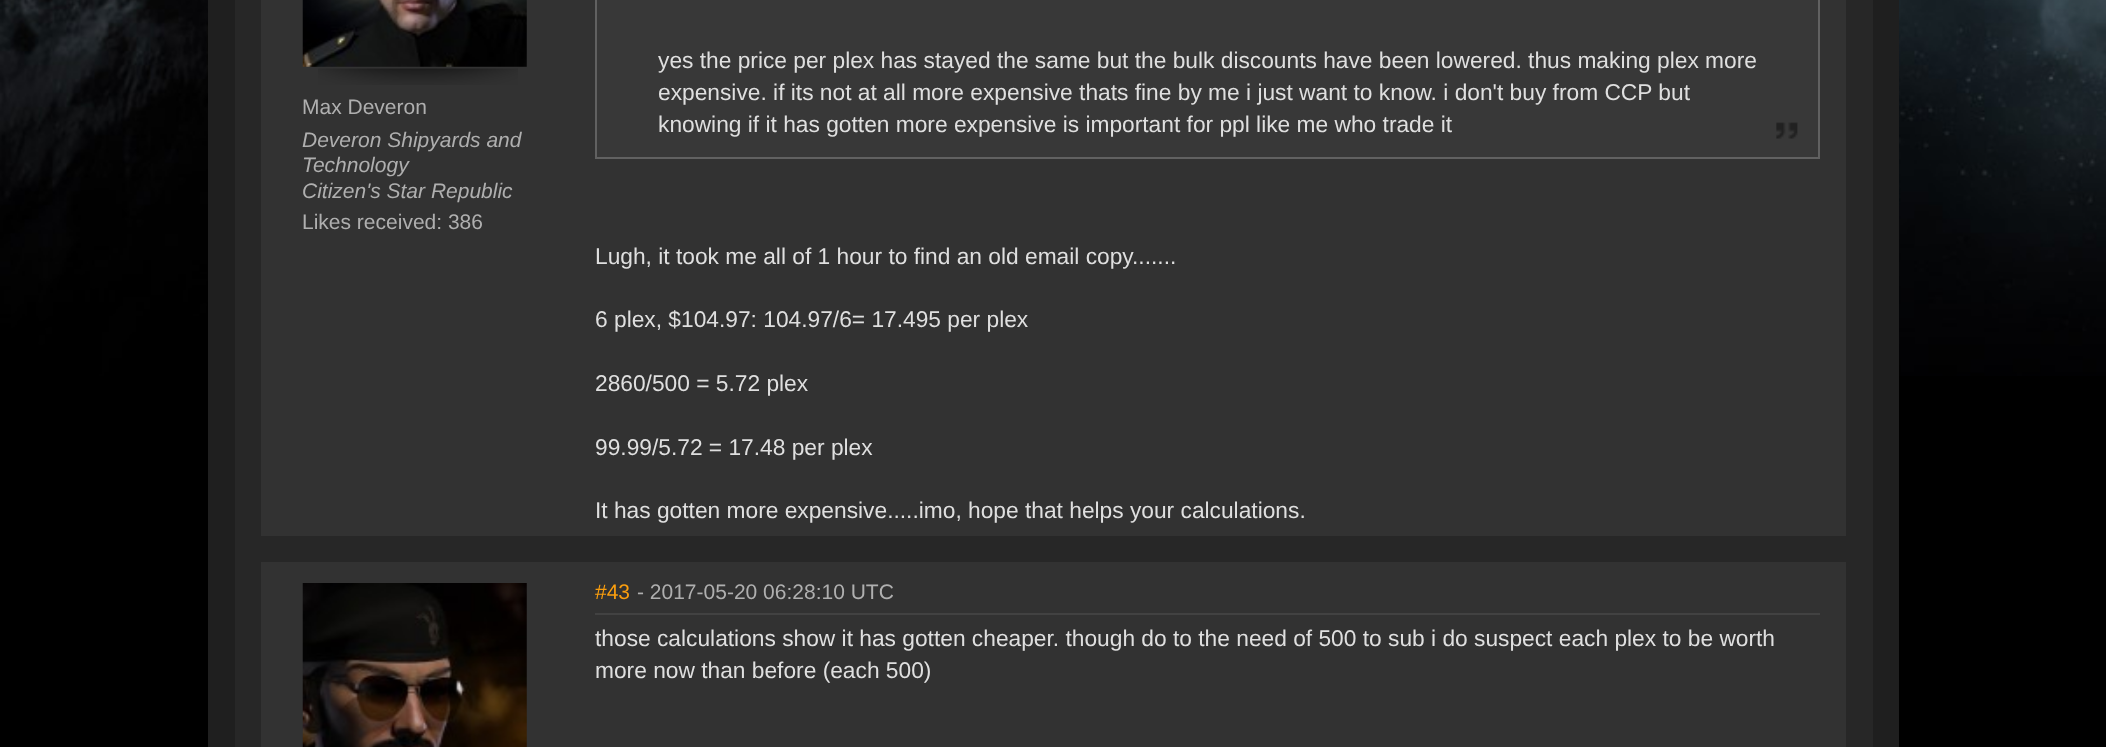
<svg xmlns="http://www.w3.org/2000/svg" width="2106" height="747">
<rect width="100%" height="100%" fill="#000"/>
<image x="0" y="0" width="2106" height="376" href="media/1.png"/>
<rect x="208" width="1691" height="747" fill="#1f1f1f"/>
<rect x="235" width="1638" height="747" fill="#272727"/>
<rect x="261" width="1585" height="536" fill="#323232"/>
<image x="318" y="68" width="200" height="17" href="media/2.png"/>
<image x="302" y="0" width="225" height="67" href="media/3.png"/>
<text x="302" y="114" style="font-family:Liberation Sans;font-size:21px;fill:#afafaf">Max Deveron</text>
<text x="302" y="147" style="font-family:Liberation Sans;font-size:21px;font-style:italic;fill:#afafaf">Deveron Shipyards and</text>
<text x="302" y="172" style="font-family:Liberation Sans;font-size:21px;font-style:italic;fill:#afafaf">Technology</text>
<text x="302" y="198" style="font-family:Liberation Sans;font-size:21px;font-style:italic;fill:#afafaf">Citizen's Star Republic</text>
<text x="302" y="229" style="font-family:Liberation Sans;font-size:21px;fill:#afafaf">Likes received: 386</text>
<rect x="596" y="-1" width="1223" height="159" fill="#383838" stroke="#616161" stroke-width="2"/>
<image x="1776" y="122" width="22" height="17" href="media/4.png"/>
<text x="658" y="68" style="font-family:Liberation Sans;font-size:22.75px;fill:#dfdfdf">yes the price per plex has stayed the same but the bulk discounts have been lowered. thus making plex more</text>
<text x="658" y="100" style="font-family:Liberation Sans;font-size:22.75px;fill:#dfdfdf">expensive. if its not at all more expensive thats fine by me i just want to know. i don't buy from CCP but</text>
<text x="658" y="132" style="font-family:Liberation Sans;font-size:22.75px;fill:#dfdfdf">knowing if it has gotten more expensive is important for ppl like me who trade it</text>
<text x="595" y="264" style="font-family:Liberation Sans;font-size:22.75px;fill:#dfdfdf">Lugh, it took me all of 1 hour to find an old email copy.......</text>
<text x="595" y="327" style="font-family:Liberation Sans;font-size:22.75px;fill:#dfdfdf">6 plex, $104.97: 104.97/6= 17.495 per plex</text>
<text x="595" y="391" style="font-family:Liberation Sans;font-size:22.75px;fill:#dfdfdf">2860/500 = 5.72 plex</text>
<text x="595" y="455" style="font-family:Liberation Sans;font-size:22.75px;fill:#dfdfdf">99.99/5.72 = 17.48 per plex</text>
<text x="595" y="518" style="font-family:Liberation Sans;font-size:22.75px;fill:#dfdfdf">It has gotten more expensive.....imo, hope that helps your calculations.</text>
<rect x="261" y="562" width="1585" height="185" fill="#323232"/>
<image x="302" y="583" width="225" height="164" href="media/5.png"/>
<rect x="595" y="613" width="1225" height="2" fill="#424242"/>
<text x="595" y="599" style="font-family:Liberation Sans;font-size:21px;fill:#fa9e0e">#43</text>
<text x="637" y="599" style="font-family:Liberation Sans;font-size:21px;fill:#afafaf">- 2017-05-20 06:28:10 UTC</text>
<text x="595" y="646" style="font-family:Liberation Sans;font-size:22.75px;fill:#dfdfdf">those calculations show it has gotten cheaper. though do to the need of 500 to sub i do suspect each plex to be worth</text>
<text x="595" y="678" style="font-family:Liberation Sans;font-size:22.75px;fill:#dfdfdf">more now than before (each 500)</text>
</svg>
